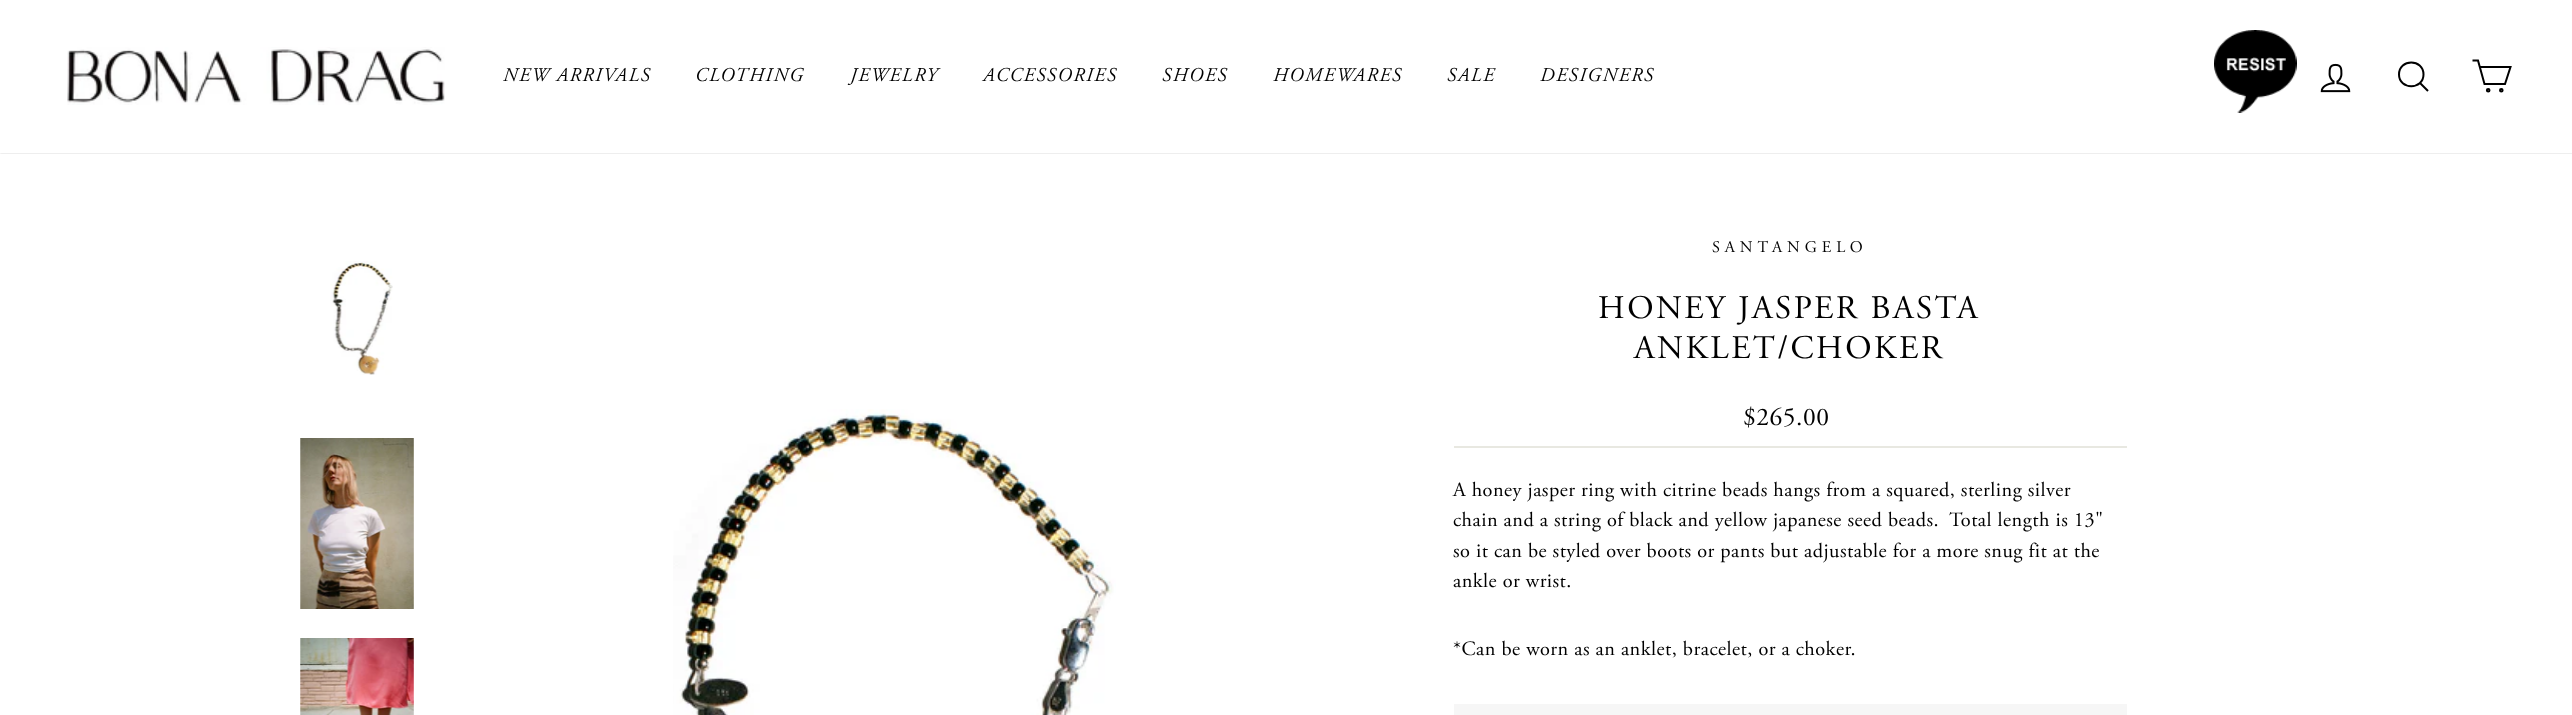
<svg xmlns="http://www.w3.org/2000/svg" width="2572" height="715">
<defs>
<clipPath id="clip1"><rect x="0" y="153" width="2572" height="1"/></clipPath>
</defs>
<rect width="100%" height="100%" fill="#fff"/>
<g clip-path="url(#clip1)">
<rect width="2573" height="153" fill="#00000033" filter="blur(1px)"/>
</g>
<image x="67" y="47" width="378" height="58" href="media/1.png"/>
<text x="503" y="81" style="font-family:Adobe Garamond;font-size:19.5px;font-style:italic;letter-spacing:1.5px;fill:#000">NEW ARRIVALS</text>
<text x="695" y="81" style="font-family:Adobe Garamond;font-size:19.5px;font-style:italic;letter-spacing:1.5px;fill:#000">CLOTHING</text>
<text x="850" y="81" style="font-family:Adobe Garamond;font-size:19.5px;font-style:italic;letter-spacing:1.5px;fill:#000">JEWELRY</text>
<text x="983" y="81" style="font-family:Adobe Garamond;font-size:19.5px;font-style:italic;letter-spacing:1.5px;fill:#000">ACCESSORIES</text>
<text x="1162" y="81" style="font-family:Adobe Garamond;font-size:19.5px;font-style:italic;letter-spacing:1.5px;fill:#000">SHOES</text>
<text x="1273" y="81" style="font-family:Adobe Garamond;font-size:19.5px;font-style:italic;letter-spacing:1.5px;fill:#000">HOMEWARES</text>
<text x="1447" y="81" style="font-family:Adobe Garamond;font-size:19.5px;font-style:italic;letter-spacing:1.5px;fill:#000">SALE</text>
<text x="1540" y="81" style="font-family:Adobe Garamond;font-size:19.5px;font-style:italic;letter-spacing:1.5px;fill:#000">DESIGNERS</text>
<image x="2214" y="30" width="83" height="83" href="media/2.png"/>
<image x="2320" y="63" width="31" height="30" href="media/3.png"/>
<path d="M2423.5 74.5c0 15.5-24.5 15.5-24.5 0c0-16 24.5-16 24.5 0zm4.5 16.5l-8-8" fill="none" stroke="#000" stroke-width="2"/>
<path d="M2479.5 67h31l-5.5 17h-20.5l-6.5-23.5h-5.5" fill="none" stroke="#000" stroke-width="2"/>
<circle cx="2488.2" cy="90.3" r="1.3" fill="none" stroke="#000" stroke-width="2"/>
<circle cx="2501.3" cy="90.3" r="1.3" fill="none" stroke="#000" stroke-width="2"/>
<image x="330" y="261" width="63" height="114" href="media/4.png"/>
<image x="300" y="438" width="114" height="171" href="media/5.png"/>
<image x="300" y="638" width="114" height="77" href="media/6.png"/>
<image x="673" y="409" width="443" height="306" href="media/7.png"/>
<text x="1712" y="252" style="font-family:Adobe Garamond;font-size:16.25px;letter-spacing:4.9px;fill:#000">SANTANGELO</text>
<text x="1598" y="318" style="font-family:Adobe Garamond;font-size:33.1px;letter-spacing:2.5px;fill:#000">HONEY JASPER BASTA</text>
<text x="1634" y="358" style="font-family:Adobe Garamond;font-size:33.1px;letter-spacing:2.5px;fill:#000">ANKLET/CHOKER</text>
<text x="1743" y="425" style="font-family:Adobe Garamond;font-size:25.5px;letter-spacing:0.5px;fill:#000">$265.00</text>
<rect x="1454" y="446" width="673" height="2" fill="#e8e8e1"/>
<text x="1453" y="496" style="font-family:Adobe Garamond;font-size:20.25px;letter-spacing:0.5px;fill:#000">A honey jasper ring with citrine beads hangs from a squared, sterling silver</text>
<text x="1453" y="526" style="font-family:Adobe Garamond;font-size:20.25px;letter-spacing:0.5px;fill:#000" xml:space="preserve">chain and a string of black and yellow japanese seed beads.  Total length is 13"</text>
<text x="1453" y="557" style="font-family:Adobe Garamond;font-size:20.25px;letter-spacing:0.5px;fill:#000">so it can be styled over boots or pants but adjustable for a more snug fit at the</text>
<text x="1453" y="587" style="font-family:Adobe Garamond;font-size:20.25px;letter-spacing:0.5px;fill:#000">ankle or wrist.</text>
<text x="1453" y="655" style="font-family:Adobe Garamond;font-size:20.25px;letter-spacing:0.5px;fill:#000">*Can be worn as an anklet, bracelet, or a choker.</text>
<rect x="1454" y="704" width="673" height="11" fill="#f6f6f6"/>
</svg>
